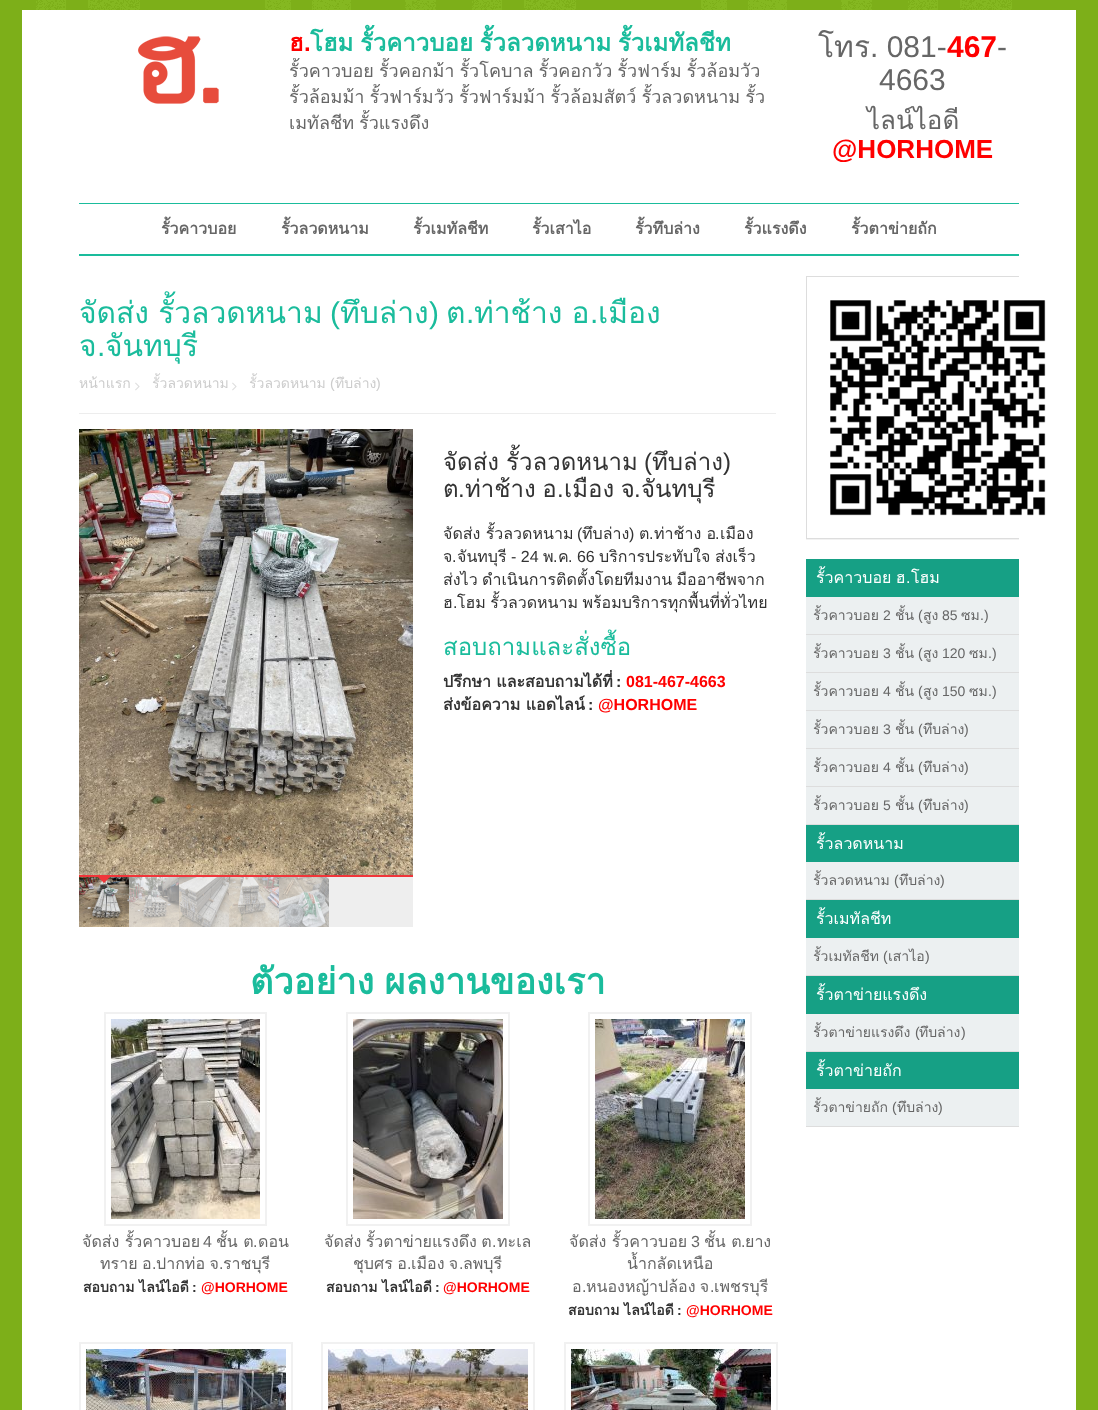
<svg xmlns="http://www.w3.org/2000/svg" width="1098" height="1410">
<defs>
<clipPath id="clip1"><rect x="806" y="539" width="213" height="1"/></clipPath>
</defs>
<rect width="100%" height="100%" fill="#fff"/>
<image x="0" y="0" width="1098" height="1410" href="media/1.png"/>
<rect x="22" y="10" width="1054" height="1400" fill="#fff"/>
<image x="138" y="36" width="81" height="68" href="media/2.png"/>
<text x="289" y="51" style="font-family:Loma;font-size:24px;font-weight:bold;fill:#f00">ฮ</text>
<text x="304" y="51" style="font-family:Liberation Sans;font-size:24px;font-weight:bold;fill:#f00">.</text>
<text x="310" y="51" word-spacing="-1.5" style="font-family:Loma;font-size:24px;font-weight:bold;fill:#1abc9c">โฮม รั้วคาวบอย รั้วลวดหนาม รั้วเมทัลชีท</text>
<text x="289" y="77" word-spacing="-1" style="font-family:Loma;font-size:18px;fill:#666">รั้วคาวบอย รั้วคอกม้า รั้วโคบาล รั้วคอกวัว รั้วฟาร์ม รั้วล้อมวัว</text>
<text x="289" y="103" word-spacing="-1" style="font-family:Loma;font-size:18px;fill:#666">รั้วล้อมม้า รั้วฟาร์มวัว รั้วฟาร์มม้า รั้วล้อมสัตว์ รั้วลวดหนาม รั้ว</text>
<text x="289" y="129" word-spacing="-1" style="font-family:Loma;font-size:18px;fill:#666">เมทัลชีท รั้วแรงดึง</text>
<text x="818" y="57" style="font-family:Loma;font-size:30px;fill:#666">โทร</text>
<text x="870" y="57" style="font-family:Liberation Sans;font-size:30px;fill:#666">. 081-</text>
<text x="947" y="57" style="font-family:Liberation Sans;font-size:30px;font-weight:bold;fill:#f00">467</text>
<text x="997" y="57" style="font-family:Liberation Sans;font-size:30px;fill:#666">-</text>
<text x="879" y="90" style="font-family:Liberation Sans;font-size:30px;fill:#666">4663</text>
<text x="867" y="129" style="font-family:Loma;font-size:26px;fill:#666">ไลน์ไอดี</text>
<text x="832" y="158" style="font-family:Liberation Sans;font-size:26px;font-weight:bold;fill:#f00">@HORHOME</text>
<rect x="79" y="203" width="940" height="1" fill="#1abc9c"/>
<rect x="79" y="254" width="940" height="2" fill="#1abc9c"/>
<text x="161" y="234" style="font-family:Loma;font-size:16px;font-weight:bold;fill:#666">รั้วคาวบอย</text>
<text x="281" y="234" style="font-family:Loma;font-size:16px;font-weight:bold;fill:#666">รั้วลวดหนาม</text>
<text x="413" y="234" style="font-family:Loma;font-size:16px;font-weight:bold;fill:#666">รั้วเมทัลชีท</text>
<text x="532" y="234" style="font-family:Loma;font-size:16px;font-weight:bold;fill:#666">รั้วเสาไอ</text>
<text x="635" y="234" style="font-family:Loma;font-size:16px;font-weight:bold;fill:#666">รั้วทึบล่าง</text>
<text x="744" y="234" style="font-family:Loma;font-size:16px;font-weight:bold;fill:#666">รั้วแรงดึง</text>
<text x="851" y="234" style="font-family:Loma;font-size:16px;font-weight:bold;fill:#666">รั้วตาข่ายถัก</text>
<rect x="79" y="413" width="697" height="1" fill="#ededed"/>
<text x="79" y="323" word-spacing="-1" style="font-family:Loma;font-size:30px;fill:#1abc9c">จัดส่ง รั้วลวดหนาม</text>
<text x="330" y="323" style="font-family:Liberation Sans;font-size:30px;fill:#1abc9c">(</text>
<text x="340" y="323" style="font-family:Loma;font-size:30px;fill:#1abc9c">ทึบล่าง</text>
<text x="466" y="323" style="font-family:Liberation Sans;font-size:30px;fill:#1abc9c">.</text>
<text x="474" y="323" word-spacing="-1" style="font-family:Loma;font-size:30px;fill:#1abc9c">ท่าช้าง อ</text>
<text x="590" y="323" style="font-family:Liberation Sans;font-size:30px;fill:#1abc9c">.</text>
<text x="598" y="323" style="font-family:Loma;font-size:30px;fill:#1abc9c">เมือง</text>
<text x="429" y="323" style="font-family:Liberation Sans;font-size:30px;fill:#1abc9c">)</text>
<text x="446" y="323" style="font-family:Loma;font-size:30px;fill:#1abc9c">ต</text>
<text x="79" y="356" style="font-family:Loma;font-size:30px;fill:#1abc9c">จ</text>
<text x="97" y="356" style="font-family:Liberation Sans;font-size:30px;fill:#1abc9c">.</text>
<text x="105" y="356" style="font-family:Loma;font-size:30px;fill:#1abc9c">จันทบุรี</text>
<text x="79" y="388" style="font-family:Loma;font-size:14px;fill:#ccc">หน้าแรก</text>
<image x="135" y="382" width="5" height="9" href="media/3.png"/>
<text x="152" y="388" style="font-family:Loma;font-size:14px;fill:#ccc">รั้วลวดหนาม</text>
<image x="232" y="382" width="5" height="9" href="media/3.png"/>
<text x="249" y="388" style="font-family:Loma;font-size:14px;fill:#ccc">รั้วลวดหนาม</text>
<text x="330" y="388" style="font-family:Liberation Sans;font-size:14px;fill:#ccc">(</text>
<text x="335" y="388" style="font-family:Loma;font-size:14px;fill:#ccc">ทึบล่าง</text>
<text x="376" y="388" style="font-family:Liberation Sans;font-size:14px;fill:#ccc">)</text>
<rect x="129" y="877" width="284" height="50" fill="#eee"/>
<image x="79" y="429" width="334" height="446" href="media/4.png"/>
<rect x="79" y="875" width="334" height="2" fill="#f0353a"/>
<image x="79" y="877" width="50" height="50" href="media/5.png"/>
<path d="M98 877h12l-6 6z" fill="#f0353a"/>
<image x="129" y="877" width="50" height="50" href="media/6.png"/>
<image x="179" y="877" width="50" height="50" href="media/7.png"/>
<image x="229" y="877" width="50" height="50" href="media/8.png"/>
<image x="279" y="877" width="50" height="50" href="media/9.png"/>
<text x="443" y="470" word-spacing="-1" style="font-family:Loma;font-size:24px;fill:#333">จัดส่ง รั้วลวดหนาม</text>
<text x="644" y="470" style="font-family:Liberation Sans;font-size:24px;fill:#333">(</text>
<text x="652" y="470" style="font-family:Loma;font-size:24px;fill:#333">ทึบล่าง</text>
<text x="723" y="470" style="font-family:Liberation Sans;font-size:24px;fill:#333">)</text>
<text x="443" y="497" style="font-family:Loma;font-size:24px;fill:#333">ต</text>
<text x="458" y="497" style="font-family:Liberation Sans;font-size:24px;fill:#333">.</text>
<text x="465" y="497" word-spacing="-1.5" style="font-family:Loma;font-size:24px;fill:#333">ท่าช้าง อ</text>
<text x="557" y="497" style="font-family:Liberation Sans;font-size:24px;fill:#333">.</text>
<text x="564" y="497" word-spacing="-1.5" style="font-family:Loma;font-size:24px;fill:#333">เมือง จ</text>
<text x="634" y="497" style="font-family:Liberation Sans;font-size:24px;fill:#333">.</text>
<text x="641" y="497" style="font-family:Loma;font-size:24px;fill:#333">จันทบุรี</text>
<text x="443" y="539" style="font-family:Loma;font-size:16px;fill:#333">จัดส่ง รั้วลวดหนาม</text>
<text x="577" y="539" style="font-family:Liberation Sans;font-size:16px;fill:#333">(</text>
<text x="582" y="539" style="font-family:Loma;font-size:16px;fill:#333">ทึบล่าง</text>
<text x="649" y="539" style="font-family:Liberation Sans;font-size:16px;fill:#333">.</text>
<text x="654" y="539" style="font-family:Loma;font-size:16px;fill:#333">ท่าช้าง อ</text>
<text x="715" y="539" style="font-family:Liberation Sans;font-size:16px;fill:#333">.</text>
<text x="720" y="539" style="font-family:Loma;font-size:16px;fill:#333">เมือง</text>
<text x="629" y="539" style="font-family:Liberation Sans;font-size:16px;fill:#333">)</text>
<text x="639" y="539" style="font-family:Loma;font-size:16px;fill:#333">ต</text>
<text x="443" y="562" style="font-family:Loma;font-size:16px;fill:#333">จ</text>
<text x="452" y="562" style="font-family:Liberation Sans;font-size:16px;fill:#333">.</text>
<text x="457" y="562" style="font-family:Loma;font-size:16px;fill:#333">จันทบุรี</text>
<text x="511" y="562" style="font-family:Liberation Sans;font-size:16px;fill:#333">- 24</text>
<text x="543" y="562" style="font-family:Loma;font-size:16px;fill:#333">พ</text>
<text x="558" y="562" style="font-family:Loma;font-size:16px;fill:#333">ค</text>
<text x="568" y="562" style="font-family:Liberation Sans;font-size:16px;fill:#333">. 66</text>
<text x="599" y="562" style="font-family:Loma;font-size:16px;fill:#333">บริการประทับใจ</text>
<text x="715" y="562" style="font-family:Loma;font-size:16px;fill:#333">ส่งเร็ว</text>
<text x="553" y="562" style="font-family:Liberation Sans;font-size:16px;fill:#333">.</text>
<text x="443" y="585" word-spacing="-1" style="font-family:Loma;font-size:16px;fill:#333">ส่งไว ดำเนินการติดตั้งโดยทีมงาน มืออาชีพจาก</text>
<text x="443" y="608" style="font-family:Loma;font-size:16px;fill:#333">ฮ</text>
<text x="453" y="608" style="font-family:Liberation Sans;font-size:16px;fill:#333">.</text>
<text x="457" y="608" word-spacing="-1" style="font-family:Loma;font-size:16px;fill:#333">โฮม รั้วลวดหนาม พร้อมบริการทุกพื้นที่ทั่วไทย</text>
<text x="443" y="655" style="font-family:Loma;font-size:24px;fill:#1abc9c">สอบถามและสั่งซื้อ</text>
<text x="443" y="687" style="font-family:Loma;font-size:16px;font-weight:bold;fill:#333">ปรึกษา และสอบถามได้ที่</text>
<text x="616" y="687" style="font-family:Liberation Sans;font-size:16px;font-weight:bold;fill:#333">:</text>
<text x="626" y="687" style="font-family:Liberation Sans;font-size:16px;font-weight:bold;fill:#f00">081-467-4663</text>
<text x="443" y="710" style="font-family:Loma;font-size:16px;font-weight:bold;fill:#333">ส่งข้อความ แอดไลน์</text>
<text x="588" y="710" style="font-family:Liberation Sans;font-size:16px;font-weight:bold;fill:#333">:</text>
<text x="598" y="710" style="font-family:Liberation Sans;font-size:16px;font-weight:bold;fill:#f00">@HORHOME</text>
<text x="250" y="994" word-spacing="-2" style="font-family:Loma;font-size:36px;font-weight:bold;fill:#1abc9c">ตัวอย่าง ผลงานของเรา</text>
<rect x="105" y="1013" width="161" height="212" fill="none" stroke="#f1f1f1" stroke-width="2"/>
<image x="111" y="1019" width="149" height="200" href="media/10.png"/>
<text x="82" y="1247" style="font-family:Loma;font-size:16px;fill:#666">จัดส่ง รั้วคาวบอย</text>
<text x="203" y="1247" style="font-family:Liberation Sans;font-size:16px;fill:#666">4</text>
<text x="216" y="1247" style="font-family:Loma;font-size:16px;fill:#666">ชั้น ต</text>
<text x="253" y="1247" style="font-family:Liberation Sans;font-size:16px;fill:#666">.</text>
<text x="258" y="1247" style="font-family:Loma;font-size:16px;fill:#666">ดอน</text>
<text x="100" y="1269" word-spacing="-1" style="font-family:Loma;font-size:16px;fill:#666">ทราย อ</text>
<text x="152" y="1269" style="font-family:Liberation Sans;font-size:16px;fill:#666">.</text>
<text x="156" y="1269" word-spacing="-1" style="font-family:Loma;font-size:16px;fill:#666">ปากท่อ จ</text>
<text x="219" y="1269" style="font-family:Liberation Sans;font-size:16px;fill:#666">.</text>
<text x="223" y="1269" style="font-family:Loma;font-size:16px;fill:#666">ราชบุรี</text>
<text x="83" y="1292" style="font-family:Loma;font-size:14px;font-weight:bold;fill:#333">สอบถาม ไลน์ไอดี</text>
<text x="192" y="1292" style="font-family:Liberation Sans;font-size:14px;font-weight:bold;fill:#333">:</text>
<text x="201" y="1292" style="font-family:Liberation Sans;font-size:14px;font-weight:bold;fill:#f00">@HORHOME</text>
<rect x="347" y="1013" width="162" height="212" fill="none" stroke="#f1f1f1" stroke-width="2"/>
<image x="353" y="1019" width="150" height="200" href="media/11.png"/>
<text x="324" y="1247" word-spacing="-1" style="font-family:Loma;font-size:16px;fill:#666">จัดส่ง รั้วตาข่ายแรงดึง ต</text>
<text x="492" y="1247" style="font-family:Liberation Sans;font-size:16px;fill:#666">.</text>
<text x="497" y="1247" style="font-family:Loma;font-size:16px;fill:#666">ทะเล</text>
<text x="353" y="1269" word-spacing="-1" style="font-family:Loma;font-size:16px;fill:#666">ชุบศร อ</text>
<text x="407" y="1269" style="font-family:Liberation Sans;font-size:16px;fill:#666">.</text>
<text x="411" y="1269" word-spacing="-1" style="font-family:Loma;font-size:16px;fill:#666">เมือง จ</text>
<text x="463" y="1269" style="font-family:Loma;font-size:16px;fill:#666">ลพบุรี</text>
<text x="459" y="1269" style="font-family:Liberation Sans;font-size:16px;fill:#666">.</text>
<text x="326" y="1292" style="font-family:Loma;font-size:14px;font-weight:bold;fill:#333">สอบถาม ไลน์ไอดี</text>
<text x="435" y="1292" style="font-family:Liberation Sans;font-size:14px;font-weight:bold;fill:#333">:</text>
<text x="443" y="1292" style="font-family:Liberation Sans;font-size:14px;font-weight:bold;fill:#f00">@HORHOME</text>
<rect x="589" y="1013" width="162" height="212" fill="none" stroke="#f1f1f1" stroke-width="2"/>
<image x="595" y="1019" width="150" height="200" href="media/12.png"/>
<text x="569" y="1247" style="font-family:Loma;font-size:16px;fill:#666">จัดส่ง รั้วคาวบอย</text>
<text x="691" y="1247" style="font-family:Liberation Sans;font-size:16px;fill:#666">3</text>
<text x="704" y="1247" style="font-family:Loma;font-size:16px;fill:#666">ชั้น ต</text>
<text x="741" y="1247" style="font-family:Liberation Sans;font-size:16px;fill:#666">.</text>
<text x="745" y="1247" style="font-family:Loma;font-size:16px;fill:#666">ยาง</text>
<text x="627" y="1269" style="font-family:Loma;font-size:16px;fill:#666">น้ำกลัดเหนือ</text>
<text x="572" y="1292" style="font-family:Loma;font-size:16px;fill:#666">อ</text>
<text x="582" y="1292" style="font-family:Liberation Sans;font-size:16px;fill:#666">.</text>
<text x="586" y="1292" word-spacing="-1" style="font-family:Loma;font-size:16px;fill:#666">หนองหญ้าปล้อง จ</text>
<text x="710" y="1292" style="font-family:Liberation Sans;font-size:16px;fill:#666">.</text>
<text x="714" y="1292" style="font-family:Loma;font-size:16px;fill:#666">เพชรบุรี</text>
<text x="568" y="1315" style="font-family:Loma;font-size:14px;font-weight:bold;fill:#333">สอบถาม ไลน์ไอดี</text>
<text x="677" y="1315" style="font-family:Liberation Sans;font-size:14px;font-weight:bold;fill:#333">:</text>
<text x="686" y="1315" style="font-family:Liberation Sans;font-size:14px;font-weight:bold;fill:#f00">@HORHOME</text>
<rect x="80" y="1343" width="212" height="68" fill="none" stroke="#f1f1f1" stroke-width="2"/>
<image x="86" y="1349" width="200" height="61" href="media/13.png"/>
<rect x="322" y="1343" width="212" height="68" fill="none" stroke="#f1f1f1" stroke-width="2"/>
<image x="328" y="1349" width="200" height="61" href="media/14.png"/>
<rect x="565" y="1343" width="212" height="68" fill="none" stroke="#f1f1f1" stroke-width="2"/>
<image x="571" y="1349" width="200" height="61" href="media/15.png"/>
<g clip-path="url(#clip1)">
<rect x="806" y="277" width="213" height="263" fill="#0000000d" filter="blur(0.5px)"/>
</g>
<rect x="806.5" y="276.5" width="212" height="262" fill="none" stroke="#ddd"/>
<image x="830" y="277" width="216" height="261" href="media/16.png"/>
<rect x="806" y="559" width="213" height="38" fill="#16a085"/>
<text x="816" y="583" word-spacing="-1" style="font-family:Loma;font-size:16px;fill:#fff">รั้วคาวบอย ฮ</text>
<text x="906" y="583" style="font-family:Liberation Sans;font-size:16px;fill:#fff">.</text>
<text x="911" y="583" style="font-family:Loma;font-size:16px;fill:#fff">โฮม</text>
<rect x="806" y="597" width="213" height="37" fill="#ecf0f1"/>
<rect x="806" y="634" width="213" height="1" fill="#ddd"/>
<text x="813" y="620" style="font-family:Loma;font-size:14px;fill:#666">รั้วคาวบอย</text>
<text x="883" y="620" style="font-family:Liberation Sans;font-size:14px;fill:#666">2</text>
<text x="895" y="620" style="font-family:Loma;font-size:14px;fill:#666">ชั้น</text>
<text x="918" y="620" style="font-family:Liberation Sans;font-size:14px;fill:#666">(</text>
<text x="942" y="620" style="font-family:Liberation Sans;font-size:14px;fill:#666">85</text>
<text x="980" y="620" style="font-family:Liberation Sans;font-size:14px;fill:#666">.)</text>
<text x="923" y="620" style="font-family:Loma;font-size:14px;fill:#666">สูง</text>
<text x="961" y="620" style="font-family:Loma;font-size:14px;fill:#666">ซม</text>
<rect x="806" y="635" width="213" height="37" fill="#ecf0f1"/>
<rect x="806" y="672" width="213" height="1" fill="#ddd"/>
<text x="813" y="658" style="font-family:Loma;font-size:14px;fill:#666">รั้วคาวบอย</text>
<text x="883" y="658" style="font-family:Liberation Sans;font-size:14px;fill:#666">3</text>
<text x="895" y="658" style="font-family:Loma;font-size:14px;fill:#666">ชั้น</text>
<text x="918" y="658" style="font-family:Liberation Sans;font-size:14px;fill:#666">(</text>
<text x="942" y="658" style="font-family:Liberation Sans;font-size:14px;fill:#666">120</text>
<text x="988" y="658" style="font-family:Liberation Sans;font-size:14px;fill:#666">.)</text>
<text x="923" y="658" style="font-family:Loma;font-size:14px;fill:#666">สูง</text>
<text x="969" y="658" style="font-family:Loma;font-size:14px;fill:#666">ซม</text>
<rect x="806" y="673" width="213" height="37" fill="#ecf0f1"/>
<rect x="806" y="710" width="213" height="1" fill="#ddd"/>
<text x="813" y="696" style="font-family:Loma;font-size:14px;fill:#666">รั้วคาวบอย</text>
<text x="883" y="696" style="font-family:Liberation Sans;font-size:14px;fill:#666">4</text>
<text x="895" y="696" style="font-family:Loma;font-size:14px;fill:#666">ชั้น</text>
<text x="918" y="696" style="font-family:Liberation Sans;font-size:14px;fill:#666">(</text>
<text x="942" y="696" style="font-family:Liberation Sans;font-size:14px;fill:#666">150</text>
<text x="988" y="696" style="font-family:Liberation Sans;font-size:14px;fill:#666">.)</text>
<text x="923" y="696" style="font-family:Loma;font-size:14px;fill:#666">สูง</text>
<text x="969" y="696" style="font-family:Loma;font-size:14px;fill:#666">ซม</text>
<rect x="806" y="711" width="213" height="37" fill="#ecf0f1"/>
<rect x="806" y="748" width="213" height="1" fill="#ddd"/>
<text x="813" y="734" style="font-family:Loma;font-size:14px;fill:#666">รั้วคาวบอย</text>
<text x="883" y="734" style="font-family:Liberation Sans;font-size:14px;fill:#666">3</text>
<text x="895" y="734" style="font-family:Loma;font-size:14px;fill:#666">ชั้น</text>
<text x="918" y="734" style="font-family:Liberation Sans;font-size:14px;fill:#666">(</text>
<text x="923" y="734" style="font-family:Loma;font-size:14px;fill:#666">ทึบล่าง</text>
<text x="964" y="734" style="font-family:Liberation Sans;font-size:14px;fill:#666">)</text>
<rect x="806" y="749" width="213" height="37" fill="#ecf0f1"/>
<rect x="806" y="786" width="213" height="1" fill="#ddd"/>
<text x="813" y="772" style="font-family:Loma;font-size:14px;fill:#666">รั้วคาวบอย</text>
<text x="883" y="772" style="font-family:Liberation Sans;font-size:14px;fill:#666">4</text>
<text x="895" y="772" style="font-family:Loma;font-size:14px;fill:#666">ชั้น</text>
<text x="918" y="772" style="font-family:Liberation Sans;font-size:14px;fill:#666">(</text>
<text x="923" y="772" style="font-family:Loma;font-size:14px;fill:#666">ทึบล่าง</text>
<text x="964" y="772" style="font-family:Liberation Sans;font-size:14px;fill:#666">)</text>
<rect x="806" y="787" width="213" height="37" fill="#ecf0f1"/>
<rect x="806" y="824" width="213" height="1" fill="#ddd"/>
<text x="813" y="810" style="font-family:Loma;font-size:14px;fill:#666">รั้วคาวบอย</text>
<text x="883" y="810" style="font-family:Liberation Sans;font-size:14px;fill:#666">5</text>
<text x="895" y="810" style="font-family:Loma;font-size:14px;fill:#666">ชั้น</text>
<text x="918" y="810" style="font-family:Liberation Sans;font-size:14px;fill:#666">(</text>
<text x="923" y="810" style="font-family:Loma;font-size:14px;fill:#666">ทึบล่าง</text>
<text x="964" y="810" style="font-family:Liberation Sans;font-size:14px;fill:#666">)</text>
<rect x="806" y="825" width="213" height="37" fill="#16a085"/>
<text x="816" y="849" style="font-family:Loma;font-size:16px;fill:#fff">รั้วลวดหนาม</text>
<rect x="806" y="862" width="213" height="37" fill="#ecf0f1"/>
<rect x="806" y="899" width="213" height="1" fill="#ddd"/>
<text x="813" y="885" style="font-family:Loma;font-size:14px;fill:#666">รั้วลวดหนาม</text>
<text x="894" y="885" style="font-family:Liberation Sans;font-size:14px;fill:#666">(</text>
<text x="899" y="885" style="font-family:Loma;font-size:14px;fill:#666">ทึบล่าง</text>
<text x="940" y="885" style="font-family:Liberation Sans;font-size:14px;fill:#666">)</text>
<rect x="806" y="900" width="213" height="38" fill="#16a085"/>
<text x="816" y="924" style="font-family:Loma;font-size:16px;fill:#fff">รั้วเมทัลชีท</text>
<rect x="806" y="938" width="213" height="37" fill="#ecf0f1"/>
<rect x="806" y="975" width="213" height="1" fill="#ddd"/>
<text x="813" y="961" style="font-family:Loma;font-size:14px;fill:#666">รั้วเมทัลชีท</text>
<text x="883" y="961" style="font-family:Liberation Sans;font-size:14px;fill:#666">(</text>
<text x="888" y="961" style="font-family:Loma;font-size:14px;fill:#666">เสาไอ</text>
<text x="925" y="961" style="font-family:Liberation Sans;font-size:14px;fill:#666">)</text>
<rect x="806" y="976" width="213" height="38" fill="#16a085"/>
<text x="816" y="1000" style="font-family:Loma;font-size:16px;fill:#fff">รั้วตาข่ายแรงดึง</text>
<rect x="806" y="1014" width="213" height="37" fill="#ecf0f1"/>
<rect x="806" y="1051" width="213" height="1" fill="#ddd"/>
<text x="813" y="1037" style="font-family:Loma;font-size:14px;fill:#666">รั้วตาข่ายแรงดึง</text>
<text x="915" y="1037" style="font-family:Liberation Sans;font-size:14px;fill:#666">(</text>
<text x="919" y="1037" style="font-family:Loma;font-size:14px;fill:#666">ทึบล่าง</text>
<text x="961" y="1037" style="font-family:Liberation Sans;font-size:14px;fill:#666">)</text>
<rect x="806" y="1052" width="213" height="37" fill="#16a085"/>
<text x="816" y="1076" style="font-family:Loma;font-size:16px;fill:#fff">รั้วตาข่ายถัก</text>
<rect x="806" y="1089" width="213" height="37" fill="#ecf0f1"/>
<rect x="806" y="1126" width="213" height="1" fill="#ddd"/>
<text x="813" y="1112" style="font-family:Loma;font-size:14px;fill:#666">รั้วตาข่ายถัก</text>
<text x="892" y="1112" style="font-family:Liberation Sans;font-size:14px;fill:#666">(</text>
<text x="897" y="1112" style="font-family:Loma;font-size:14px;fill:#666">ทึบล่าง</text>
<text x="938" y="1112" style="font-family:Liberation Sans;font-size:14px;fill:#666">)</text>
</svg>
